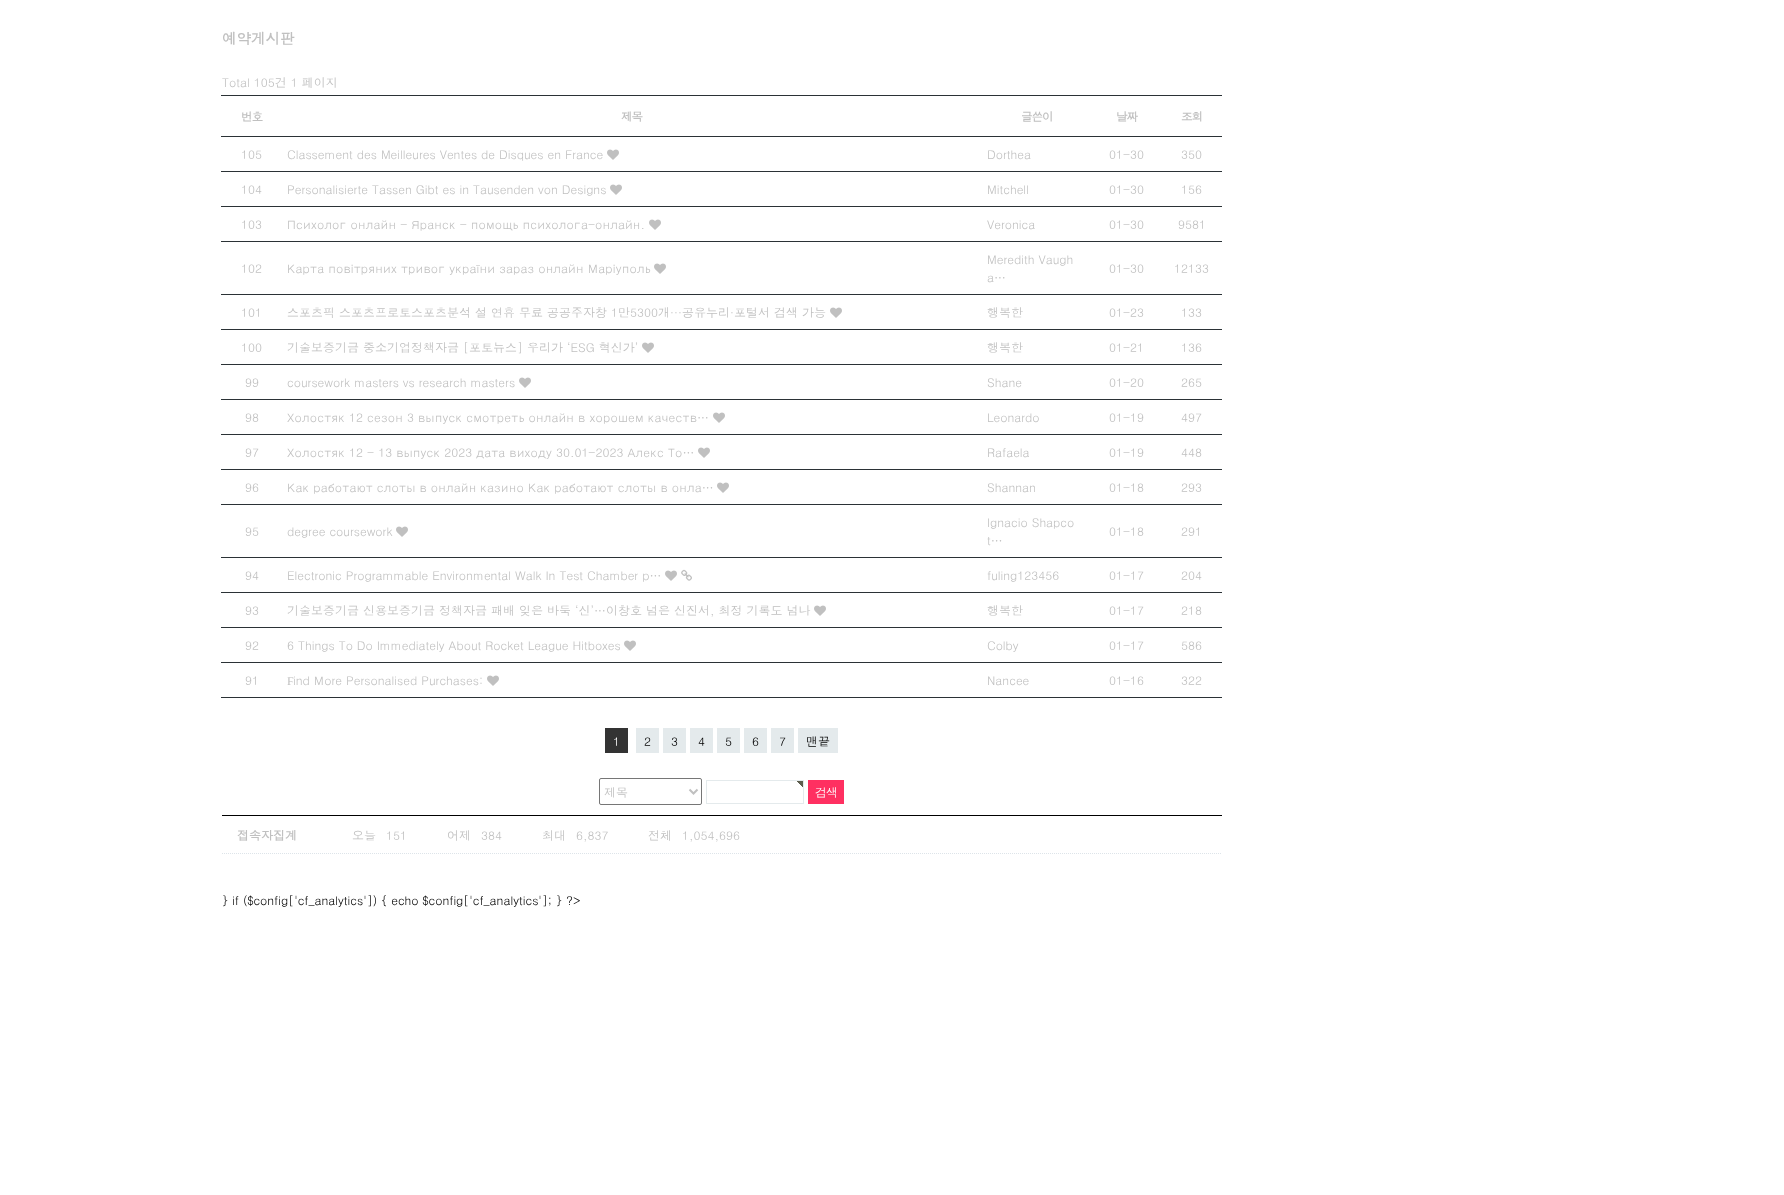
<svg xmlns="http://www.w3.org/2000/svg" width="1784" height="1195">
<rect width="100%" height="100%" fill="#fff"/>
<text x="222" y="44" style="font-family:Dotum;font-size:14.5px;font-weight:bold;fill:#c0c0c0">예약게시판</text>
<text x="222" y="87" style="font-family:Dotum;font-size:12px;fill:#c0c0c0">Total 105건 1 페이지</text>
<text x="241" y="121" style="font-family:Dotum;font-size:11.5px;font-weight:bold;letter-spacing:-1px;fill:#c0c0c0">번호</text>
<text x="621" y="121" style="font-family:Dotum;font-size:11.5px;font-weight:bold;letter-spacing:-1px;fill:#c0c0c0">제목</text>
<text x="1021" y="121" style="font-family:Dotum;font-size:11.5px;font-weight:bold;letter-spacing:-1px;fill:#c0c0c0">글쓴이</text>
<text x="1116" y="121" style="font-family:Dotum;font-size:11.5px;font-weight:bold;letter-spacing:-1px;fill:#c0c0c0">날짜</text>
<rect x="221" y="95" width="1001" height="1" fill="#2b3236"/>
<text x="1181" y="121" style="font-family:Dotum;font-size:11.5px;font-weight:bold;letter-spacing:-1px;fill:#c0c0c0">조회</text>
<text x="241" y="159" style="font-family:Dotum;font-size:12px;fill:#c0c0c0">105</text>
<text x="287" y="159" style="font-family:Dotum;font-size:12px;fill:#c0c0c0">Classement des Meilleures Ventes de Disques en France</text>
<image x="607" y="149" width="12" height="11" href="media/1.png"/>
<text x="987" y="159" style="font-family:Dotum;font-size:12px;fill:#c0c0c0">Dorthea</text>
<text x="1109" y="159" style="font-family:Dotum;font-size:12px;fill:#c0c0c0">01-30</text>
<rect x="221" y="136" width="1001" height="1" fill="#2b3236"/>
<text x="1181" y="159" style="font-family:Dotum;font-size:12px;fill:#c0c0c0">350</text>
<text x="241" y="194" style="font-family:Dotum;font-size:12px;fill:#c0c0c0">104</text>
<text x="287" y="194" style="font-family:Dotum;font-size:12px;fill:#c0c0c0">Personalisierte Tassen Gibt es in Tausenden von Designs</text>
<image x="610" y="184" width="12" height="11" href="media/1.png"/>
<text x="987" y="194" style="font-family:Dotum;font-size:12px;fill:#c0c0c0">Mitchell</text>
<text x="1109" y="194" style="font-family:Dotum;font-size:12px;fill:#c0c0c0">01-30</text>
<rect x="221" y="171" width="1001" height="1" fill="#2b3236"/>
<text x="1181" y="194" style="font-family:Dotum;font-size:12px;fill:#c0c0c0">156</text>
<text x="241" y="229" style="font-family:Dotum;font-size:12px;fill:#c0c0c0">103</text>
<text x="287" y="229" style="font-family:Dotum;font-size:12px;fill:#c0c0c0">Психолог онлайн - Яранск - помощь психолога-онлайн.</text>
<image x="649" y="219" width="12" height="11" href="media/1.png"/>
<text x="987" y="229" style="font-family:Dotum;font-size:12px;fill:#c0c0c0">Veronica</text>
<text x="1109" y="229" style="font-family:Dotum;font-size:12px;fill:#c0c0c0">01-30</text>
<rect x="221" y="206" width="1001" height="1" fill="#2b3236"/>
<text x="1178" y="229" style="font-family:Dotum;font-size:12px;fill:#c0c0c0">9581</text>
<text x="241" y="273" style="font-family:Dotum;font-size:12px;fill:#c0c0c0">102</text>
<text x="287" y="273" style="font-family:Dotum;font-size:12px;fill:#c0c0c0">Карта повітряних тривог україни зараз онлайн Маріуполь</text>
<image x="654" y="263" width="12" height="11" href="media/1.png"/>
<text x="987" y="264" style="font-family:Dotum;font-size:12px;fill:#c0c0c0">Meredith Vaugh</text>
<text x="987" y="282" style="font-family:Dotum;font-size:12px;fill:#c0c0c0">a…</text>
<text x="1109" y="273" style="font-family:Dotum;font-size:12px;fill:#c0c0c0">01-30</text>
<rect x="221" y="241" width="1001" height="1" fill="#2b3236"/>
<text x="1174" y="273" style="font-family:Dotum;font-size:12px;fill:#c0c0c0">12133</text>
<text x="241" y="317" style="font-family:Dotum;font-size:12px;fill:#c0c0c0">101</text>
<text x="287" y="317" style="font-family:Dotum;font-size:12px;fill:#c0c0c0">스포츠픽 스포츠프로토스포츠분석 설 연휴 무료 공공주자창 1만5300개···공유누리·포털서 검색 가능</text>
<image x="830" y="307" width="12" height="11" href="media/1.png"/>
<text x="987" y="317" style="font-family:Dotum;font-size:12px;fill:#c0c0c0">행복한</text>
<text x="1109" y="317" style="font-family:Dotum;font-size:12px;fill:#c0c0c0">01-23</text>
<rect x="221" y="294" width="1001" height="1" fill="#2b3236"/>
<text x="1181" y="317" style="font-family:Dotum;font-size:12px;fill:#c0c0c0">133</text>
<text x="241" y="352" style="font-family:Dotum;font-size:12px;fill:#c0c0c0">100</text>
<text x="287" y="352" style="font-family:Dotum;font-size:12px;fill:#c0c0c0">기술보증기금 중소기업정책자금 [포토뉴스] 우리가 ‘ESG 혁신가’</text>
<image x="642" y="342" width="12" height="11" href="media/1.png"/>
<text x="987" y="352" style="font-family:Dotum;font-size:12px;fill:#c0c0c0">행복한</text>
<text x="1109" y="352" style="font-family:Dotum;font-size:12px;fill:#c0c0c0">01-21</text>
<rect x="221" y="329" width="1001" height="1" fill="#2b3236"/>
<text x="1181" y="352" style="font-family:Dotum;font-size:12px;fill:#c0c0c0">136</text>
<text x="245" y="387" style="font-family:Dotum;font-size:12px;fill:#c0c0c0">99</text>
<text x="287" y="387" style="font-family:Dotum;font-size:12px;fill:#c0c0c0">coursework masters vs research masters</text>
<image x="519" y="377" width="12" height="11" href="media/1.png"/>
<text x="987" y="387" style="font-family:Dotum;font-size:12px;fill:#c0c0c0">Shane</text>
<text x="1109" y="387" style="font-family:Dotum;font-size:12px;fill:#c0c0c0">01-20</text>
<rect x="221" y="364" width="1001" height="1" fill="#2b3236"/>
<text x="1181" y="387" style="font-family:Dotum;font-size:12px;fill:#c0c0c0">265</text>
<text x="245" y="422" style="font-family:Dotum;font-size:12px;fill:#c0c0c0">98</text>
<text x="287" y="422" style="font-family:Dotum;font-size:12px;fill:#c0c0c0">Холостяк 12 сезон 3 выпуск смотреть онлайн в хорошем качеств…</text>
<image x="713" y="412" width="12" height="11" href="media/1.png"/>
<text x="987" y="422" style="font-family:Dotum;font-size:12px;fill:#c0c0c0">Leonardo</text>
<text x="1109" y="422" style="font-family:Dotum;font-size:12px;fill:#c0c0c0">01-19</text>
<rect x="221" y="399" width="1001" height="1" fill="#2b3236"/>
<text x="1181" y="422" style="font-family:Dotum;font-size:12px;fill:#c0c0c0">497</text>
<text x="245" y="457" style="font-family:Dotum;font-size:12px;fill:#c0c0c0">97</text>
<text x="287" y="457" style="font-family:Dotum;font-size:12px;fill:#c0c0c0">Холостяк 12 - 13 выпуск 2023 дата виходу 30.01-2023 Алекс То…</text>
<image x="698" y="447" width="12" height="11" href="media/1.png"/>
<text x="987" y="457" style="font-family:Dotum;font-size:12px;fill:#c0c0c0">Rafaela</text>
<text x="1109" y="457" style="font-family:Dotum;font-size:12px;fill:#c0c0c0">01-19</text>
<rect x="221" y="434" width="1001" height="1" fill="#2b3236"/>
<text x="1181" y="457" style="font-family:Dotum;font-size:12px;fill:#c0c0c0">448</text>
<text x="245" y="492" style="font-family:Dotum;font-size:12px;fill:#c0c0c0">96</text>
<text x="287" y="492" style="font-family:Dotum;font-size:12px;fill:#c0c0c0">Как работают слоты в онлайн казино Как работают слоты в онла…</text>
<image x="717" y="482" width="12" height="11" href="media/1.png"/>
<text x="987" y="492" style="font-family:Dotum;font-size:12px;fill:#c0c0c0">Shannan</text>
<text x="1109" y="492" style="font-family:Dotum;font-size:12px;fill:#c0c0c0">01-18</text>
<rect x="221" y="469" width="1001" height="1" fill="#2b3236"/>
<text x="1181" y="492" style="font-family:Dotum;font-size:12px;fill:#c0c0c0">293</text>
<text x="245" y="536" style="font-family:Dotum;font-size:12px;fill:#c0c0c0">95</text>
<text x="287" y="536" style="font-family:Dotum;font-size:12px;fill:#c0c0c0">degree coursework</text>
<image x="396" y="526" width="12" height="11" href="media/1.png"/>
<text x="987" y="527" style="font-family:Dotum;font-size:12px;fill:#c0c0c0">Ignacio Shapco</text>
<text x="987" y="545" style="font-family:Dotum;font-size:12px;fill:#c0c0c0">t…</text>
<text x="1109" y="536" style="font-family:Dotum;font-size:12px;fill:#c0c0c0">01-18</text>
<rect x="221" y="504" width="1001" height="1" fill="#2b3236"/>
<text x="1181" y="536" style="font-family:Dotum;font-size:12px;fill:#c0c0c0">291</text>
<text x="245" y="580" style="font-family:Dotum;font-size:12px;fill:#c0c0c0">94</text>
<text x="287" y="580" style="font-family:Dotum;font-size:12px;fill:#c0c0c0">Electronic Programmable Environmental Walk In Test Chamber p…</text>
<image x="665" y="570" width="12" height="11" href="media/1.png"/>
<image x="681" y="569" width="11" height="12" href="media/2.png"/>
<text x="987" y="580" style="font-family:Dotum;font-size:12px;fill:#c0c0c0">fuling123456</text>
<text x="1109" y="580" style="font-family:Dotum;font-size:12px;fill:#c0c0c0">01-17</text>
<rect x="221" y="557" width="1001" height="1" fill="#2b3236"/>
<text x="1181" y="580" style="font-family:Dotum;font-size:12px;fill:#c0c0c0">204</text>
<text x="245" y="615" style="font-family:Dotum;font-size:12px;fill:#c0c0c0">93</text>
<text x="287" y="615" style="font-family:Dotum;font-size:12px;fill:#c0c0c0">기술보증기금 신용보증기금 정책자금 패배 잊은 바둑 ‘신’…이창호 넘은 신진서, 최정 기록도 넘나</text>
<image x="814" y="605" width="12" height="11" href="media/1.png"/>
<text x="987" y="615" style="font-family:Dotum;font-size:12px;fill:#c0c0c0">행복한</text>
<text x="1109" y="615" style="font-family:Dotum;font-size:12px;fill:#c0c0c0">01-17</text>
<rect x="221" y="592" width="1001" height="1" fill="#2b3236"/>
<text x="1181" y="615" style="font-family:Dotum;font-size:12px;fill:#c0c0c0">218</text>
<text x="245" y="650" style="font-family:Dotum;font-size:12px;fill:#c0c0c0">92</text>
<text x="287" y="650" style="font-family:Dotum;font-size:12px;fill:#c0c0c0">6 Things To Do Immediately About Rocket League Hitboxes</text>
<image x="624" y="640" width="12" height="11" href="media/1.png"/>
<text x="987" y="650" style="font-family:Dotum;font-size:12px;fill:#c0c0c0">Colby</text>
<text x="1109" y="650" style="font-family:Dotum;font-size:12px;fill:#c0c0c0">01-17</text>
<rect x="221" y="627" width="1001" height="1" fill="#2b3236"/>
<text x="1181" y="650" style="font-family:Dotum;font-size:12px;fill:#c0c0c0">586</text>
<text x="245" y="685" style="font-family:Dotum;font-size:12px;fill:#c0c0c0">91</text>
<text x="287" y="685" style="font-family:Liberation Serif;font-size:12px;fill:#c0c0c0">Ϝ</text>
<text x="293" y="685" style="font-family:Dotum;font-size:12px;fill:#c0c0c0">ind Мore Personalised Purchases:</text>
<image x="487" y="675" width="12" height="11" href="media/1.png"/>
<text x="987" y="685" style="font-family:Dotum;font-size:12px;fill:#c0c0c0">Nancee</text>
<text x="1109" y="685" style="font-family:Dotum;font-size:12px;fill:#c0c0c0">01-16</text>
<rect x="221" y="662" width="1001" height="1" fill="#2b3236"/>
<rect x="221" y="697" width="1001" height="1" fill="#2b3236"/>
<text x="1181" y="685" style="font-family:Dotum;font-size:12px;fill:#c0c0c0">322</text>
<rect x="605" y="728" width="23" height="25" fill="#333"/>
<text x="613" y="746" style="font-family:Dotum;font-size:12px;fill:#fff">1</text>
<rect x="636" y="728" width="23" height="25" fill="#e4eaec"/>
<text x="644" y="746" style="font-family:Dotum;font-size:12px;fill:#000">2</text>
<rect x="663" y="728" width="23" height="25" fill="#e4eaec"/>
<text x="671" y="746" style="font-family:Dotum;font-size:12px;fill:#000">3</text>
<rect x="690" y="728" width="23" height="25" fill="#e4eaec"/>
<text x="698" y="746" style="font-family:Dotum;font-size:12px;fill:#000">4</text>
<rect x="717" y="728" width="23" height="25" fill="#e4eaec"/>
<text x="725" y="746" style="font-family:Dotum;font-size:12px;fill:#000">5</text>
<rect x="744" y="728" width="23" height="25" fill="#e4eaec"/>
<text x="752" y="746" style="font-family:Dotum;font-size:12px;fill:#000">6</text>
<rect x="771" y="728" width="23" height="25" fill="#e4eaec"/>
<text x="779" y="746" style="font-family:Dotum;font-size:12px;fill:#000">7</text>
<rect x="798" y="728" width="40" height="25" fill="#e4eaec"/>
<text x="806" y="746" style="font-family:Dotum;font-size:12px;fill:#000">맨끝</text>
<rect x="599.5" y="778.5" width="102" height="26" rx="1.5" fill="none" stroke="#767676"/>
<path d="M689.5 789.5l4 4l4-4" fill="none" stroke="#c0c0c0" stroke-width="2"/>
<text x="604" y="797" style="font-family:Dotum;font-size:12px;fill:#c0c0c0">제목</text>
<image x="797" y="781" width="6" height="6" href="media/3.png"/>
<rect x="706.5" y="780.5" width="97" height="23" fill="none" stroke="#e4eaec"/>
<rect x="808" y="780" width="36" height="24" fill="#ff3061"/>
<text x="815" y="797" style="font-family:Dotum;font-size:12px;letter-spacing:-1px;fill:#fff">검색</text>
<rect x="222" y="815" width="1000" height="1" fill="#000"/>
<path d="M222 853.5h1000" fill="none" stroke="#dde4e9" stroke-dasharray="1 1"/>
<text x="237" y="840" style="font-family:Dotum;font-size:12px;font-weight:bold;fill:#c0c0c0">접속자집계</text>
<text x="352" y="840" style="font-family:Dotum;font-size:12px;fill:#c0c0c0">오늘</text>
<text x="386" y="840" style="font-family:Dotum;font-size:12px;fill:#c0c0c0">151</text>
<text x="447" y="840" style="font-family:Dotum;font-size:12px;fill:#c0c0c0">어제</text>
<text x="481" y="840" style="font-family:Dotum;font-size:12px;fill:#c0c0c0">384</text>
<text x="542" y="840" style="font-family:Dotum;font-size:12px;fill:#c0c0c0">최대</text>
<text x="576" y="840" style="font-family:Dotum;font-size:12px;fill:#c0c0c0">6,837</text>
<text x="648" y="840" style="font-family:Dotum;font-size:12px;fill:#c0c0c0">전체</text>
<text x="682" y="840" style="font-family:Dotum;font-size:12px;fill:#c0c0c0">1,054,696</text>
<text x="222" y="905" style="font-family:Dotum;font-size:12px;fill:#000">} if ($config['cf_analytics']) { echo $config['cf_analytics']; } ?&gt;</text>
</svg>
